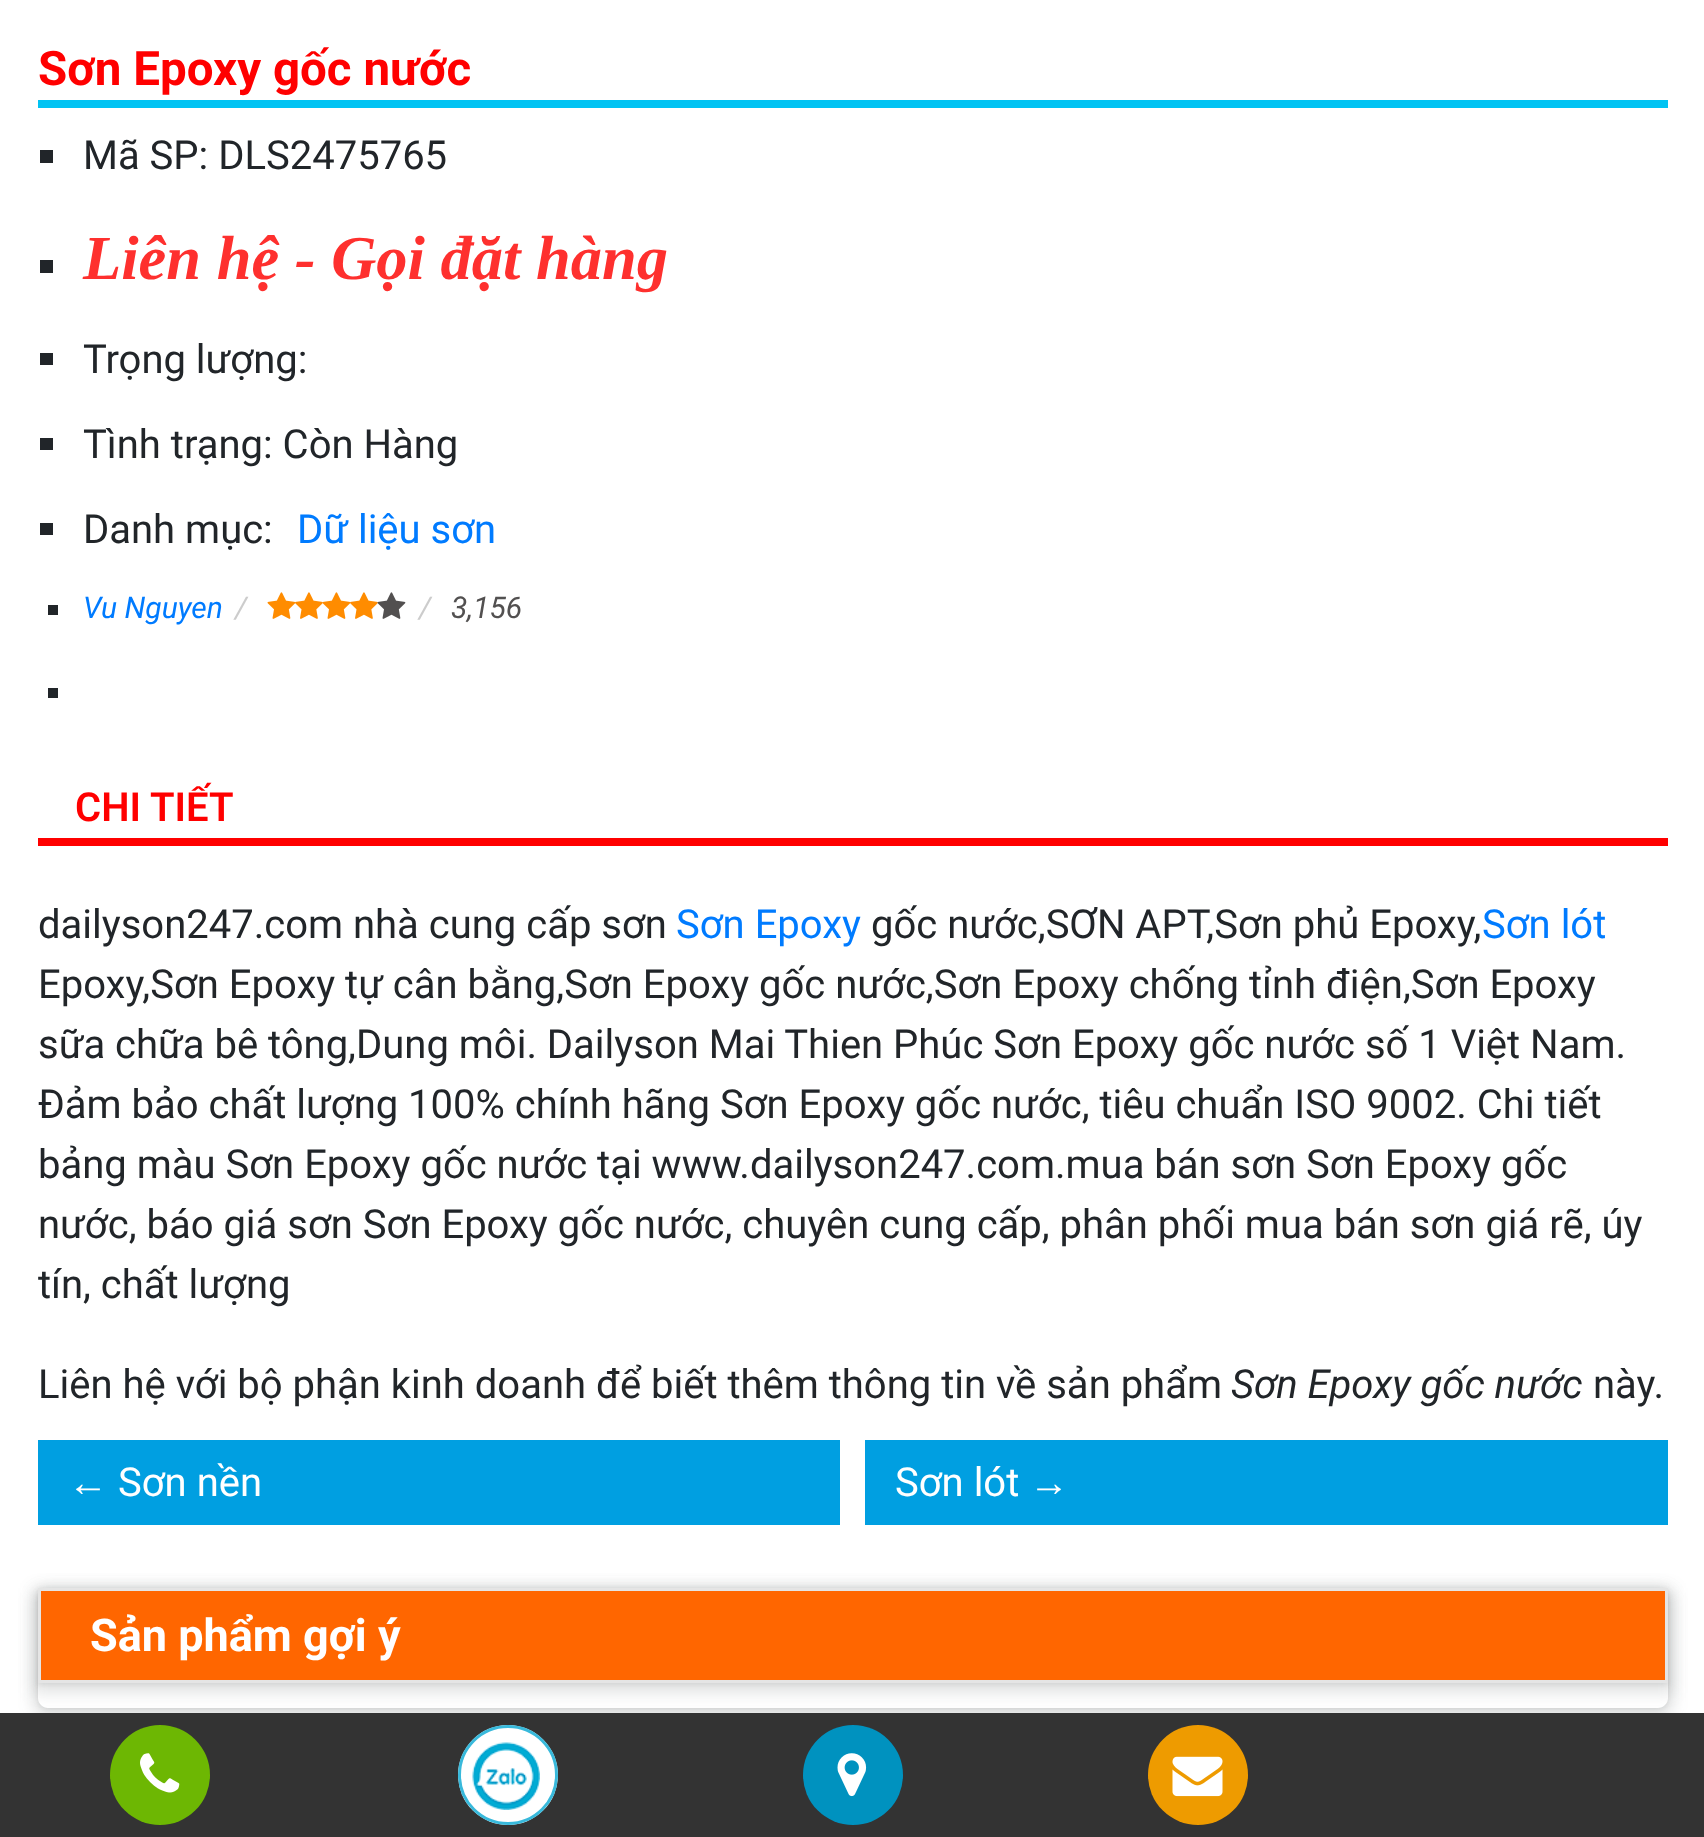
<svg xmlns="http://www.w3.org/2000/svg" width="1704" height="1837">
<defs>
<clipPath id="clip1"><path d="M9 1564h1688v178h-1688zm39 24h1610c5.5 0 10 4.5 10 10v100c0 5.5-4.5 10-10 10h-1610c-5.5 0-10-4.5-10-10v-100c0-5.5 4.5-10 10-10z" clip-rule="evenodd"/></clipPath>
<clipPath id="clip2"><path d="M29 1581h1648v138h-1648zm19 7h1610c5.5 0 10 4.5 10 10v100c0 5.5-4.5 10-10 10h-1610c-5.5 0-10-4.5-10-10v-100c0-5.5 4.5-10 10-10z" clip-rule="evenodd"/></clipPath>
</defs>
<rect width="100%" height="100%" fill="#fff"/>
<rect x="38" y="100" width="1630" height="8" fill="#01c3f3"/>
<text x="38" y="85" style="font-family:Roboto;font-size:47.5px;font-weight:bold;fill:#f00">Sơn Epoxy gốc nước</text>
<rect x="40" y="150" width="13" height="13" fill="#212529"/>
<text x="83" y="169" style="font-family:Roboto;font-size:40px;fill:#212529">Mã SP: DLS2475765</text>
<rect x="40" y="260" width="13" height="13" fill="#212529"/>
<text x="83" y="279" style="font-family:Liberation Serif;font-size:62.5px;font-weight:bold;font-style:italic;fill:#fe302e">Liên hệ - Gọi đặt hàng</text>
<rect x="40" y="353" width="13" height="12" fill="#212529"/>
<text x="83" y="373" style="font-family:Roboto;font-size:40px;fill:#212529">Trọng lượng:</text>
<rect x="40" y="438" width="13" height="12" fill="#212529"/>
<text x="83" y="458" style="font-family:Roboto;font-size:40px;fill:#212529">Tình trạng: Còn Hàng</text>
<rect x="40" y="523" width="13" height="12" fill="#212529"/>
<text x="83" y="543" style="font-family:Roboto;font-size:40px;fill:#212529">Danh mục:</text>
<text x="297" y="543" style="font-family:Roboto;font-size:40px;fill:#007bff">Dữ liệu sơn</text>
<rect x="48" y="605" width="10" height="10" fill="#212529"/>
<text x="83" y="618" style="font-family:Roboto;font-size:30px;font-style:italic;fill:#007bff">Vu Nguyen</text>
<text x="235" y="618" style="font-family:Roboto;font-size:30px;font-style:italic;fill:#ccc">/</text>
<image x="267" y="592" width="29" height="27" href="media/1.png"/>
<image x="295" y="592" width="28" height="27" href="media/2.png"/>
<image x="322" y="592" width="29" height="27" href="media/3.png"/>
<image x="350" y="592" width="28" height="27" href="media/2.png"/>
<image x="377" y="592" width="29" height="27" href="media/4.png"/>
<text x="419" y="618" style="font-family:Roboto;font-size:30px;font-style:italic;fill:#ccc">/</text>
<text x="451" y="618" style="font-family:Roboto;font-size:30px;font-style:italic;fill:#525050">3,156</text>
<rect x="48" y="688" width="10" height="10" fill="#212529"/>
<rect x="38" y="838" width="1630" height="8" fill="#f00"/>
<text x="75" y="821" style="font-family:Roboto;font-size:40px;font-weight:600;fill:#f00">CHI TIẾT</text>
<text x="38" y="938" style="font-family:Roboto;font-size:40px;fill:#212529">dailyson247.com nhà cung cấp sơn</text>
<text x="676" y="938" style="font-family:Roboto;font-size:40px;fill:#007bff">Sơn Epoxy</text>
<text x="871" y="938" style="font-family:Roboto;font-size:40px;fill:#212529">gốc nước,SƠN APT,Sơn phủ Epoxy,</text>
<text x="1482" y="938" style="font-family:Roboto;font-size:40px;fill:#007bff">Sơn lót</text>
<text x="38" y="998" style="font-family:Roboto;font-size:40px;fill:#212529">Epoxy,Sơn Epoxy tự cân bằng,Sơn Epoxy gốc nước,Sơn Epoxy chống tỉnh điện,Sơn Epoxy</text>
<text x="38" y="1058" style="font-family:Roboto;font-size:40px;fill:#212529">sữa chữa bê tông,Dung môi. Dailyson Mai Thien Phúc Sơn Epoxy gốc nước số 1 Việt Nam.</text>
<text x="38" y="1118" style="font-family:Roboto;font-size:40px;fill:#212529">Đảm bảo chất lượng 100% chính hãng Sơn Epoxy gốc nước, tiêu chuẩn ISO 9002. Chi tiết</text>
<text x="38" y="1178" style="font-family:Roboto;font-size:40px;fill:#212529">bảng màu Sơn Epoxy gốc nước tại www.dailyson247.com.mua bán sơn Sơn Epoxy gốc</text>
<text x="38" y="1238" style="font-family:Roboto;font-size:40px;fill:#212529">nước, báo giá sơn Sơn Epoxy gốc nước, chuyên cung cấp, phân phối mua bán sơn giá rẽ, úy</text>
<text x="38" y="1298" style="font-family:Roboto;font-size:40px;fill:#212529">tín, chất lượng</text>
<text x="38" y="1398" style="font-family:Roboto;font-size:40px;fill:#212529">Liên hệ với bộ phận kinh doanh để biết thêm thông tin về sản phẩm</text>
<text x="1231" y="1398" style="font-family:Roboto;font-size:40px;font-style:italic;fill:#212529">Sơn Epoxy gốc nước</text>
<text x="1593" y="1398" style="font-family:Roboto;font-size:40px;fill:#212529">này.</text>
<rect x="38" y="1440" width="802" height="85" fill="#009fe1"/>
<text x="68" y="1496" style="font-family:Liberation Sans;font-size:40px;font-style:italic;fill:#fff">←</text>
<text x="118" y="1496" style="font-family:Roboto;font-size:40px;fill:#fff">Sơn nền</text>
<rect x="865" y="1440" width="803" height="85" fill="#009fe1"/>
<text x="895" y="1496" style="font-family:Roboto;font-size:40px;fill:#fff">Sơn lót</text>
<text x="1029" y="1496" style="font-family:Liberation Sans;font-size:40px;font-style:italic;fill:#fff">→</text>
<g clip-path="url(#clip1)">
<rect x="33" y="1588" width="1640" height="130" rx="15" fill="#3c404326" filter="blur(7.5px)"/>
</g>
<g clip-path="url(#clip2)">
<rect x="38" y="1590" width="1630" height="120" rx="10" fill="#3c40431a" filter="blur(2.5px)"/>
</g>
<rect x="33" y="1588" width="1640" height="105" fill="#3c404326" filter="blur(7.5px)"/>
<rect x="38" y="1590" width="1630" height="95" fill="#3c40431a" filter="blur(2.5px)"/>
<rect x="39.5" y="1589.5" width="1627" height="92" fill="#f60" stroke="#e5e5e5" stroke-width="3"/>
<text x="90" y="1651" style="font-family:Roboto;font-size:45px;font-weight:bold;fill:#fff">Sản phẩm gợi ý</text>
<rect y="1713" width="1704" height="124" fill="#333"/>
<circle cx="160" cy="1775" r="50" fill="#6db703"/>
<image x="140" y="1753" width="40" height="40" href="media/5.png"/>
<circle cx="508" cy="1775" r="50" fill="#fff"/>
<image x="472" y="1742" width="68" height="68" href="media/6.png"/>
<circle cx="508" cy="1775" r="48.5" fill="none" stroke="#38b9db" stroke-width="3"/>
<circle cx="853" cy="1775" r="50" fill="#0092bf"/>
<image x="837" y="1753" width="30" height="44" href="media/7.png"/>
<circle cx="1198" cy="1775" r="50" fill="#ee9b00"/>
<image x="1172" y="1756" width="51" height="41" href="media/8.png"/>
</svg>
